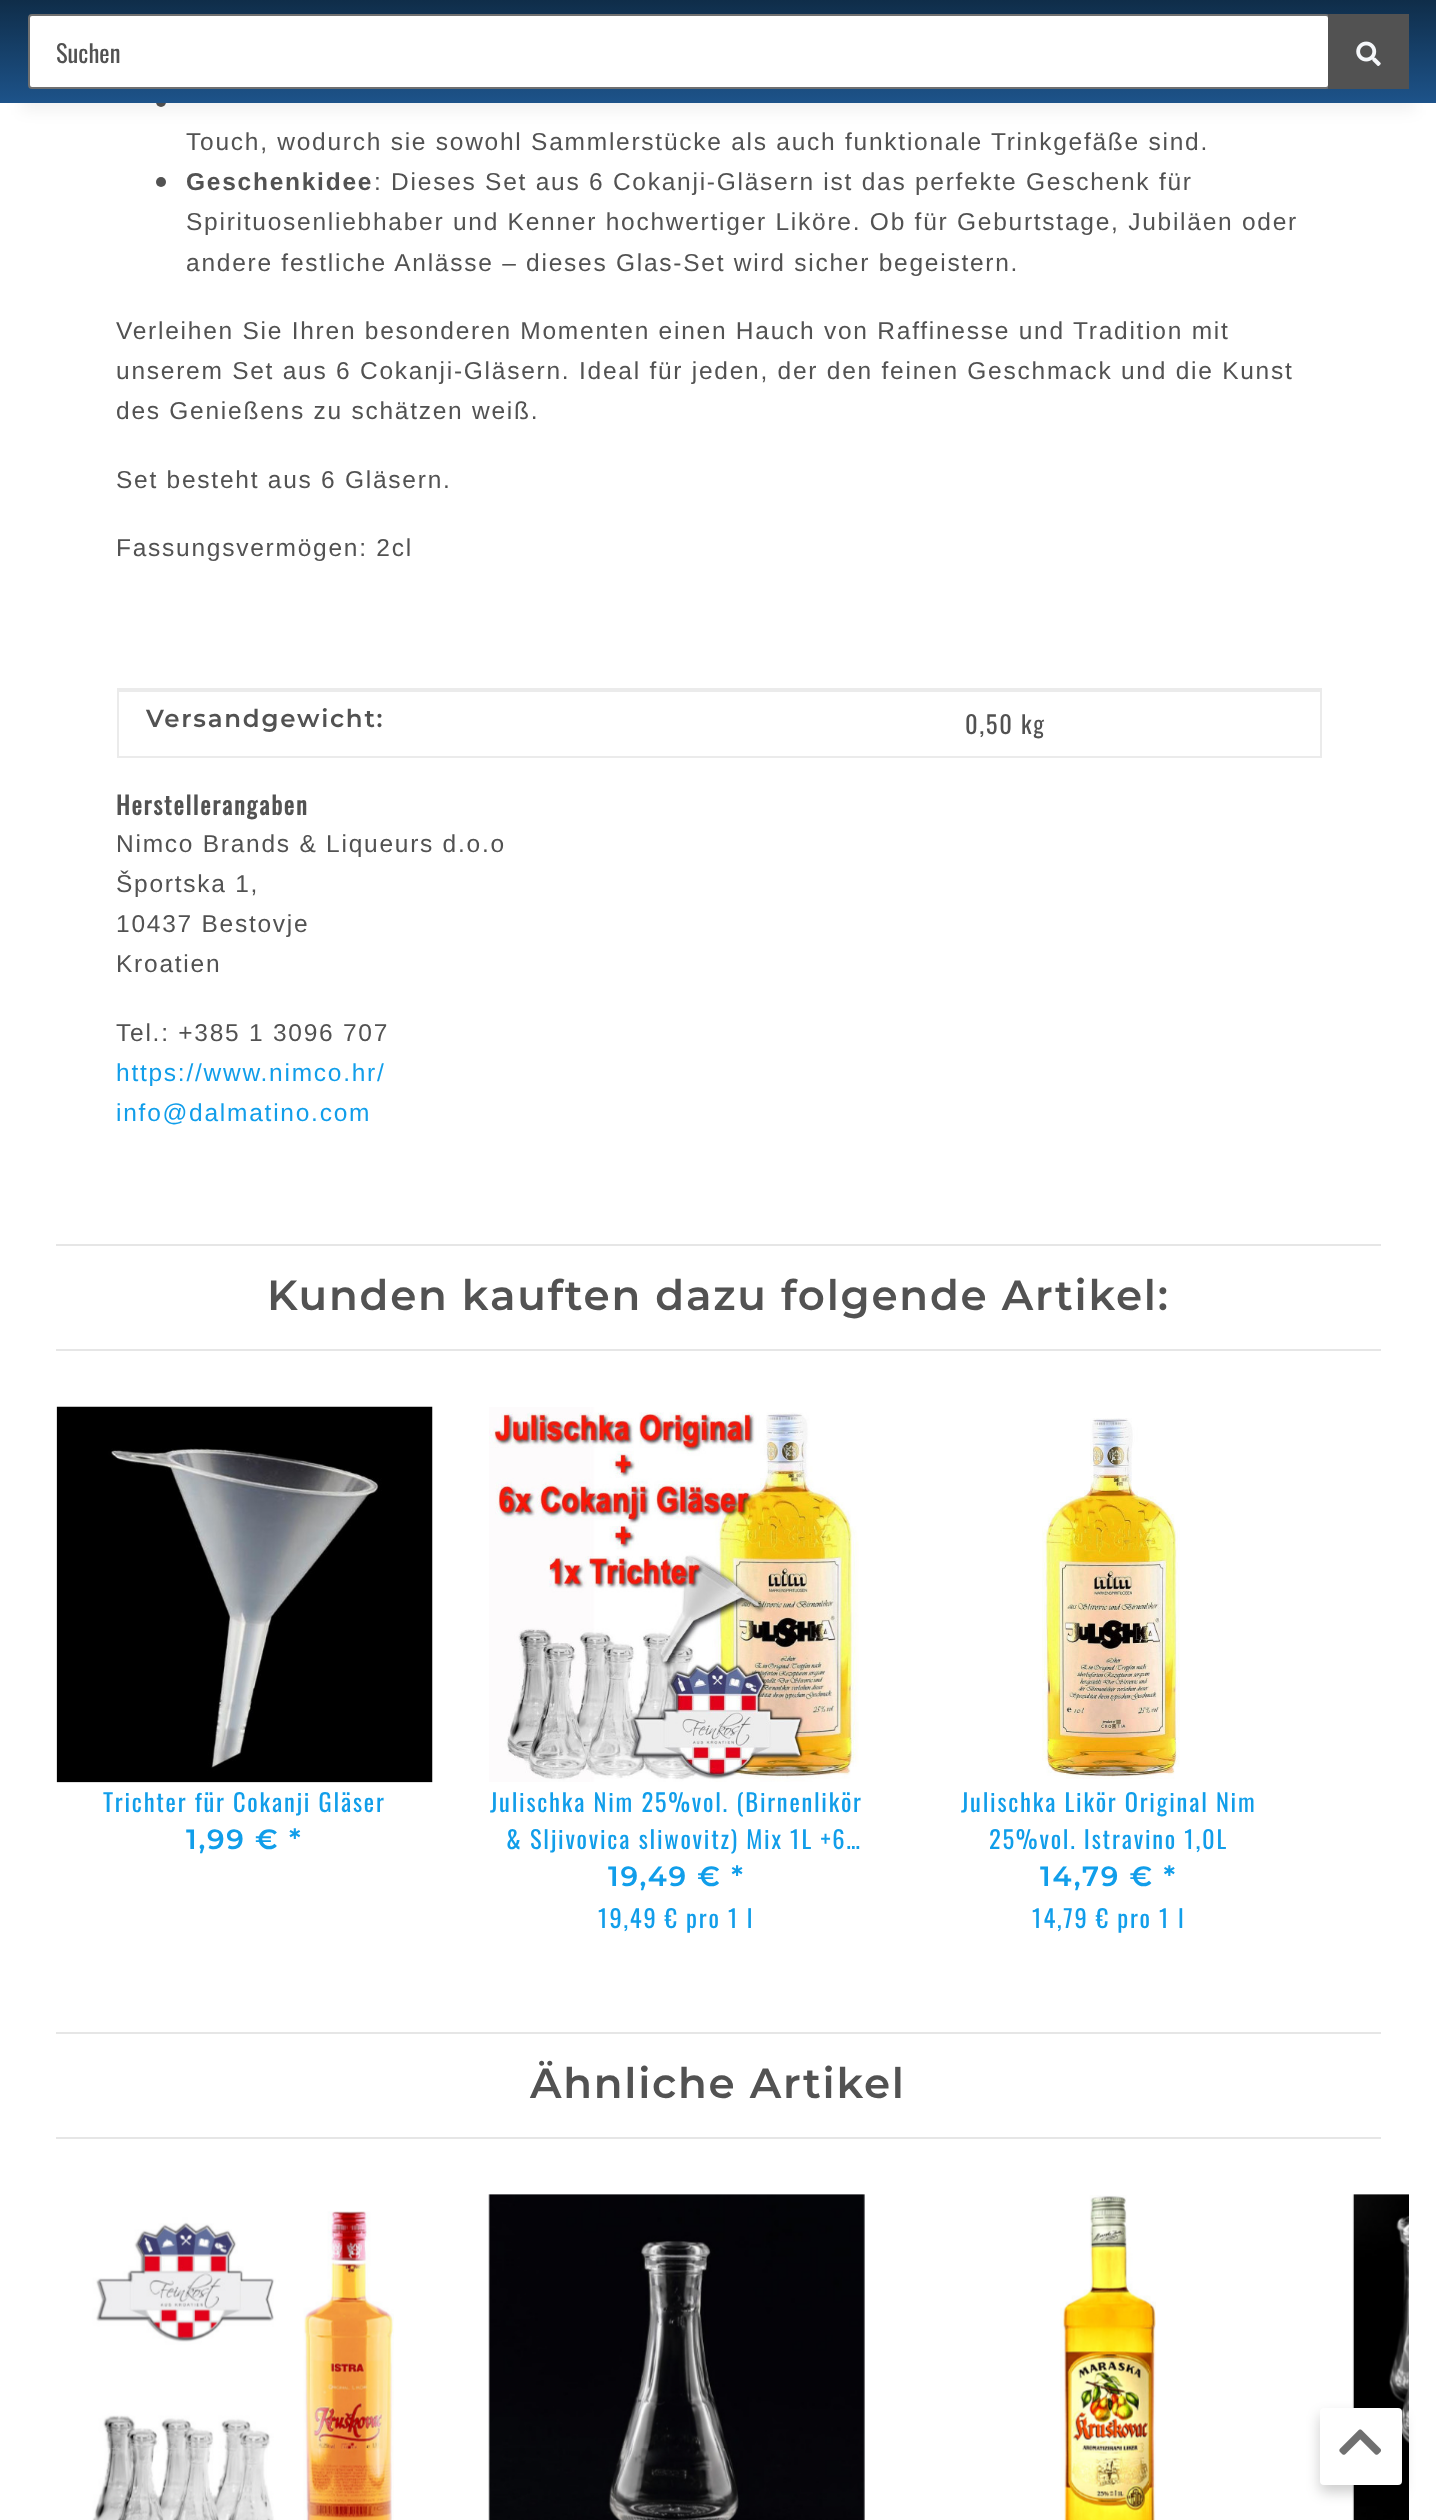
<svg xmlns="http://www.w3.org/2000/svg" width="1436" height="2520">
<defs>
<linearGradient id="g1" gradientUnits="userSpaceOnUse" x1="718" y1="0" x2="718" y2="103"><stop offset="0" stop-color="#0f2d49"/><stop offset="1" stop-color="#1d538a"/></linearGradient>
</defs>
<rect width="100%" height="100%" fill="#fff"/>
<rect x="156" y="96" width="10" height="11" rx="5" fill="#525252"/>
<rect x="21" y="49" width="1395" height="61" fill="#0000000f" filter="blur(8px)"/>
<rect width="1436" height="103" fill="url(#g1)"/>
<rect x="29" y="15" width="1300" height="73" rx="3" fill="#fff" stroke="#707070" stroke-width="2"/>
<text x="56" y="63" style="font-family:Oswald;font-size:24.5px;fill:#525252">Suchen</text>
<rect x="1328" y="14" width="81" height="75" fill="#525252"/>
<image x="1356" y="41" width="25" height="25" href="media/1.png"/>
<text x="186" y="150" style="font-family:Liberation Sans;font-size:24.5px;letter-spacing:1.75px;fill:#525252">Touch, wodurch sie sowohl Sammlerstücke als auch funktionale Trinkgefäße sind.</text>
<circle cx="161" cy="182" r="5" fill="#525252"/>
<text x="186" y="190" style="font-family:Liberation Sans;font-size:24.5px;font-weight:bold;letter-spacing:1.75px;fill:#525252">Geschenkidee</text>
<text x="374" y="190" style="font-family:Liberation Sans;font-size:24.5px;letter-spacing:1.75px;fill:#525252">: Dieses Set aus 6 Cokanji-Gläsern ist das perfekte Geschenk für</text>
<text x="186" y="230" style="font-family:Liberation Sans;font-size:24.5px;letter-spacing:1.75px;fill:#525252">Spirituosenliebhaber und Kenner hochwertiger Liköre. Ob für Geburtstage, Jubiläen oder</text>
<text x="186" y="271" style="font-family:Liberation Sans;font-size:24.5px;letter-spacing:1.75px;fill:#525252">andere festliche Anlässe – dieses Glas-Set wird sicher begeistern.</text>
<text x="116" y="339" style="font-family:Liberation Sans;font-size:24.5px;letter-spacing:1.75px;fill:#525252">Verleihen Sie Ihren besonderen Momenten einen Hauch von Raffinesse und Tradition mit</text>
<text x="116" y="379" style="font-family:Liberation Sans;font-size:24.5px;letter-spacing:1.75px;fill:#525252">unserem Set aus 6 Cokanji-Gläsern. Ideal für jeden, der den feinen Geschmack und die Kunst</text>
<text x="116" y="419" style="font-family:Liberation Sans;font-size:24.5px;letter-spacing:1.75px;fill:#525252">des Genießens zu schätzen weiß.</text>
<text x="116" y="488" style="font-family:Liberation Sans;font-size:24.5px;letter-spacing:1.75px;fill:#525252">Set besteht aus 6 Gläsern.</text>
<text x="116" y="556" style="font-family:Liberation Sans;font-size:24.5px;letter-spacing:1.75px;fill:#525252">Fassungsvermögen: 2cl</text>
<rect x="117" y="688" width="1204" height="4" fill="#ebebeb"/>
<rect x="1320" y="690" width="2" height="68" fill="#ebebeb"/>
<rect x="1321" y="688" width="1" height="4" fill="#ebebeb"/>
<rect x="117" y="756" width="1204" height="2" fill="#ebebeb"/>
<rect x="117" y="690" width="2" height="68" fill="#ebebeb"/>
<text x="146" y="727" style="font-family:Montserrat;font-size:24.5px;font-weight:600;letter-spacing:1.75px;fill:#525252">Versandgewicht:</text>
<text x="965" y="734" style="font-family:Oswald;font-size:24.5px;letter-spacing:1.75px;fill:#525252">0,50 kg</text>
<text x="116" y="815" style="font-family:Oswald;font-size:24.5px;font-weight:bold;letter-spacing:1.75px;fill:#525252">Herstellerangaben</text>
<text x="116" y="852" style="font-family:Liberation Sans;font-size:24.5px;letter-spacing:1.75px;fill:#525252">Nimco Brands &amp; Liqueurs d.o.o</text>
<text x="116" y="892" style="font-family:Liberation Sans;font-size:24.5px;letter-spacing:1.75px;fill:#525252">Športska 1,</text>
<text x="116" y="932" style="font-family:Liberation Sans;font-size:24.5px;letter-spacing:1.75px;fill:#525252">10437 Bestovje</text>
<text x="116" y="972" style="font-family:Liberation Sans;font-size:24.5px;letter-spacing:1.75px;fill:#525252">Kroatien</text>
<text x="116" y="1041" style="font-family:Liberation Sans;font-size:24.5px;letter-spacing:1.75px;fill:#525252">Tel.: +385 1 3096 707</text>
<text x="116" y="1081" style="font-family:Liberation Sans;font-size:24.5px;letter-spacing:1.75px;fill:#119eea">https://www.nimco.hr/</text>
<text x="116" y="1121" style="font-family:Liberation Sans;font-size:24.5px;letter-spacing:1.75px;fill:#119eea">info@dalmatino.com</text>
<rect x="56" y="1244" width="1325" height="2" fill="#e6e6e6"/>
<rect x="56" y="1349" width="1325" height="2" fill="#e6e6e6"/>
<text x="267" y="1310" style="font-family:Montserrat;font-size:42px;font-weight:600;letter-spacing:1.75px;fill:#525252">Kunden kauften dazu folgende Artikel:</text>
<image x="56" y="1406" width="377" height="377" href="media/2.png"/>
<text x="103" y="1812" style="font-family:Oswald;font-size:24.5px;letter-spacing:1.75px;fill:#119eea">Trichter für Cokanji Gläser</text>
<text x="186" y="1849" style="font-family:Montserrat;font-size:28px;font-weight:600;letter-spacing:1.75px;fill:#119eea">1,99 € *</text>
<image x="489" y="1407" width="370" height="375" href="media/3.png"/>
<text x="490" y="1812" style="font-family:Oswald;font-size:24.5px;letter-spacing:1.75px;fill:#119eea">Julischka Nim 25%vol. (Birnenlikör</text>
<text x="506" y="1849" style="font-family:Oswald;font-size:24.5px;letter-spacing:1.75px;fill:#119eea">&amp; Sljivovica sliwovitz) Mix 1L +6…</text>
<text x="608" y="1886" style="font-family:Montserrat;font-size:28px;font-weight:600;letter-spacing:1.75px;fill:#119eea">19,49 € *</text>
<text x="598" y="1928" style="font-family:Oswald;font-size:24.5px;letter-spacing:1.75px;fill:#119eea">19,49 € pro 1 l</text>
<image x="1042" y="1418" width="138" height="361" href="media/4.png"/>
<text x="961" y="1812" style="font-family:Oswald;font-size:24.5px;letter-spacing:1.75px;fill:#119eea">Julischka Likör Original Nim</text>
<text x="989" y="1849" style="font-family:Oswald;font-size:24.5px;letter-spacing:1.75px;fill:#119eea">25%vol. Istravino 1,0L</text>
<text x="1040" y="1886" style="font-family:Montserrat;font-size:28px;font-weight:600;letter-spacing:1.75px;fill:#119eea">14,79 € *</text>
<text x="1032" y="1928" style="font-family:Oswald;font-size:24.5px;letter-spacing:1.75px;fill:#119eea">14,79 € pro 1 l</text>
<rect x="56" y="2032" width="1325" height="2" fill="#e6e6e6"/>
<rect x="56" y="2137" width="1325" height="2" fill="#e6e6e6"/>
<text x="530" y="2098" style="font-family:Montserrat;font-size:42px;font-weight:600;letter-spacing:1.75px;fill:#525252">Ähnliche Artikel</text>
<image x="92" y="2211" width="302" height="309" href="media/5.png"/>
<image x="488" y="2194" width="377" height="326" href="media/6.png"/>
<image x="1060" y="2195" width="96" height="325" href="media/7.png"/>
<image x="1352" y="2194" width="57" height="326" href="media/8.png"/>
<rect x="1320" y="2415" width="82" height="77" rx="4" fill="#00000033" filter="blur(7px)"/>
<rect x="1320" y="2408" width="82" height="77" rx="4" fill="#fff"/>
<image x="1339" y="2429" width="42" height="26" href="media/9.png"/>
</svg>
